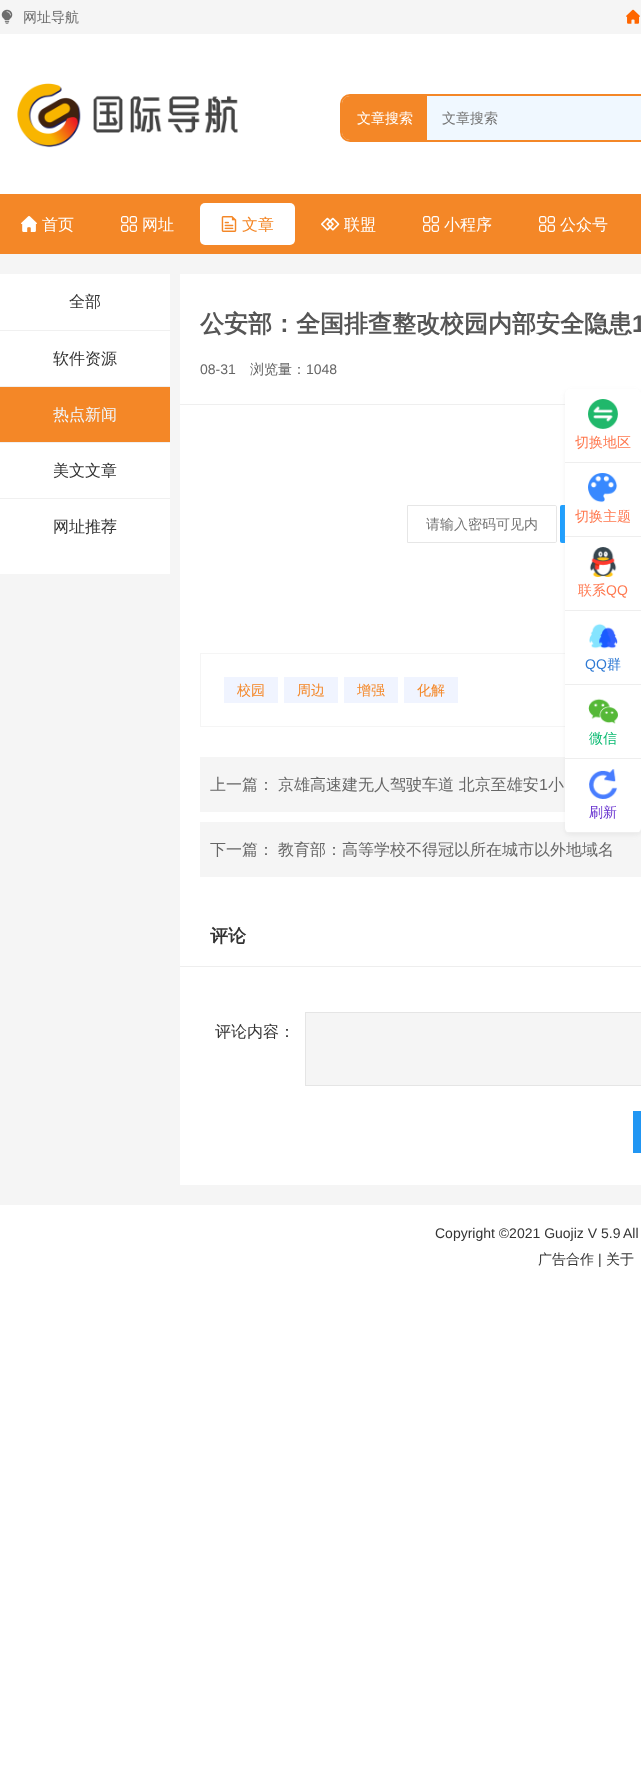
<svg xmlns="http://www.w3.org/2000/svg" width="641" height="1767">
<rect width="100%" height="100%" fill="#fff"/>
<rect width="641" height="1205" fill="#f5f5f5"/>
<image x="1" y="9" width="12" height="15" href="media/1.png"/>
<text x="23" y="22" style="font-family:WenQuanYi Zen Hei;font-size:14px;font-weight:500;fill:#6c6c6c">网址导航</text>
<image x="626" y="9" width="14" height="15" href="media/2.png"/>
<rect y="34" width="641" height="160" fill="#fff"/>
<image x="17" y="83" width="221" height="65" href="media/3.png"/>
<path d="M350 95h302v46h-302c-5 0-9-4-9-9v-28c0-5 4-9 9-9z" fill="#f0f8ff" stroke="#f48727" stroke-width="2"/>
<path d="M350 96h77v44h-77c-4.5 0-8-3.5-8-8v-28c0-4.5 3.5-8 8-8z" fill="#f48727"/>
<text x="357" y="123" style="font-family:WenQuanYi Zen Hei;font-size:14px;font-weight:500;fill:#fff">文章搜索</text>
<text x="442" y="123" style="font-family:WenQuanYi Zen Hei;font-size:14px;font-weight:500;fill:#757575">文章搜索</text>
<rect y="194" width="641" height="60" fill="#f48727"/>
<image x="21" y="216" width="16" height="16" href="media/4.png"/>
<text x="42" y="230" style="font-family:WenQuanYi Zen Hei;font-size:16px;font-weight:500;fill:#fff">首页</text>
<image x="121" y="216" width="16" height="16" href="media/5.png"/>
<text x="142" y="230" style="font-family:WenQuanYi Zen Hei;font-size:16px;font-weight:500;fill:#fff">网址</text>
<rect x="200" y="203" width="95" height="42" rx="5" fill="#fff"/>
<image x="221" y="216" width="16" height="16" href="media/6.png"/>
<text x="242" y="230" style="font-family:WenQuanYi Zen Hei;font-size:16px;font-weight:500;fill:#f48727">文章</text>
<image x="321" y="217" width="19" height="14" href="media/7.png"/>
<text x="344" y="230" style="font-family:WenQuanYi Zen Hei;font-size:16px;font-weight:500;fill:#fff">联盟</text>
<image x="423" y="216" width="16" height="16" href="media/5.png"/>
<text x="444" y="230" style="font-family:WenQuanYi Zen Hei;font-size:16px;font-weight:500;fill:#fff">小程序</text>
<image x="539" y="216" width="16" height="16" href="media/5.png"/>
<text x="560" y="230" style="font-family:WenQuanYi Zen Hei;font-size:16px;font-weight:500;fill:#fff">公众号</text>
<rect y="274" width="170" height="300" fill="#fff"/>
<text x="69" y="307" style="font-family:WenQuanYi Zen Hei;font-size:16px;font-weight:500;fill:#333">全部</text>
<rect y="330" width="170" height="1" fill="#f0f0f0"/>
<text x="53" y="364" style="font-family:WenQuanYi Zen Hei;font-size:16px;font-weight:500;fill:#333">软件资源</text>
<rect y="387" width="170" height="55" fill="#f48727"/>
<rect y="386" width="170" height="1" fill="#f0f0f0"/>
<text x="53" y="420" style="font-family:WenQuanYi Zen Hei;font-size:16px;font-weight:500;fill:#f0f8ff">热点新闻</text>
<rect y="442" width="170" height="1" fill="#f0f0f0"/>
<text x="53" y="476" style="font-family:WenQuanYi Zen Hei;font-size:16px;font-weight:500;fill:#333">美文文章</text>
<rect y="498" width="170" height="1" fill="#f0f0f0"/>
<text x="53" y="532" style="font-family:WenQuanYi Zen Hei;font-size:16px;font-weight:500;fill:#333">网址推荐</text>
<rect x="180" y="274" width="461" height="911" fill="#fff"/>
<rect x="180" y="404" width="385" height="1" fill="#efefef"/>
<text x="200" y="332" style="font-family:WenQuanYi Zen Hei;font-size:24px;font-weight:bold;fill:#565656">公安部：全国排查整改校园内部安全隐患</text>
<text x="632" y="332" style="font-family:Liberation Sans;font-size:24px;font-weight:bold;fill:#565656">1</text>
<text x="200" y="374" style="font-family:Liberation Sans;font-size:14px;fill:#666">08-31</text>
<text x="250" y="374" style="font-family:WenQuanYi Zen Hei;font-size:14px;font-weight:500;fill:#666">浏览量：</text>
<text x="306" y="374" style="font-family:Liberation Sans;font-size:14px;fill:#666">1048</text>
<path d="M407.5 505.5h147.5c1 0 1.5 .5 1.5 1.5v34c0 1-.5 1.5-1.5 1.5h-147.5z" fill="none" stroke="#e6e6e6"/>
<text x="426" y="529" style="font-family:WenQuanYi Zen Hei;font-size:14px;font-weight:500;fill:#757575">请输入密码可见内</text>
<rect x="560" y="505" width="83" height="38" rx="2" fill="#1e9fff"/>
<rect x="200.5" y="653.5" width="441" height="73" fill="none" stroke="#f5f5f5"/>
<rect x="224" y="677" width="54" height="26" fill="#f0f4ff"/>
<text x="237" y="695" style="font-family:WenQuanYi Zen Hei;font-size:14px;font-weight:500;fill:#f48727">校园</text>
<rect x="284" y="677" width="54" height="26" fill="#f0f4ff"/>
<text x="297" y="695" style="font-family:WenQuanYi Zen Hei;font-size:14px;font-weight:500;fill:#f48727">周边</text>
<rect x="344" y="677" width="54" height="26" fill="#f0f4ff"/>
<text x="357" y="695" style="font-family:WenQuanYi Zen Hei;font-size:14px;font-weight:500;fill:#f48727">增强</text>
<rect x="404" y="677" width="54" height="26" fill="#f0f4ff"/>
<text x="417" y="695" style="font-family:WenQuanYi Zen Hei;font-size:14px;font-weight:500;fill:#f48727">化解</text>
<rect x="200" y="757" width="365" height="55" fill="#f5f5f5"/>
<text x="210" y="790" style="font-family:WenQuanYi Zen Hei;font-size:16px;font-weight:500;fill:#666">上一篇：</text>
<text x="278" y="790" style="font-family:WenQuanYi Zen Hei;font-size:16px;font-weight:500;fill:#666">京雄高速建无人驾驶车道 北京至雄安</text>
<text x="539" y="790" style="font-family:Liberation Sans;font-size:16px;fill:#666">1</text>
<text x="548" y="790" style="font-family:WenQuanYi Zen Hei;font-size:16px;font-weight:500;fill:#666">小</text>
<rect x="200" y="822" width="441" height="55" fill="#f5f5f5"/>
<text x="210" y="855" style="font-family:WenQuanYi Zen Hei;font-size:16px;font-weight:500;fill:#666">下一篇：</text>
<text x="278" y="855" style="font-family:WenQuanYi Zen Hei;font-size:16px;font-weight:500;fill:#666">教育部：高等学校不得冠以所在城市以外地域名</text>
<rect x="180" y="966" width="461" height="1" fill="#eee"/>
<text x="210" y="942" style="font-family:WenQuanYi Zen Hei;font-size:18px;font-weight:bold;fill:#333">评论</text>
<text x="215" y="1037" style="font-family:WenQuanYi Zen Hei;font-size:16px;font-weight:500;fill:#333">评论内容：</text>
<rect x="305.5" y="1012.5" width="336" height="73" fill="#f5f5f5" stroke="#e5e5e5"/>
<rect x="633" y="1111" width="8" height="42" fill="#2196f3"/>
<rect x="565" y="391" width="76" height="444" rx="5" fill="#b6b6b633" filter="blur(2px)"/>
<rect x="565" y="389" width="76" height="444" rx="5" fill="#fff"/>
<rect x="565" y="462" width="76" height="1" fill="#eee"/>
<image x="588" y="399" width="30" height="30" href="media/8.png"/>
<text x="575" y="447" style="font-family:WenQuanYi Zen Hei;font-size:14px;font-weight:500;fill:#ff7950">切换地区</text>
<rect x="565" y="536" width="76" height="1" fill="#eee"/>
<image x="588" y="473" width="30" height="30" href="media/9.png"/>
<text x="575" y="521" style="font-family:WenQuanYi Zen Hei;font-size:14px;font-weight:500;fill:#ff7950">切换主题</text>
<rect x="565" y="610" width="76" height="1" fill="#eee"/>
<image x="589" y="547" width="28" height="30" href="media/10.png"/>
<text x="578" y="595" style="font-family:WenQuanYi Zen Hei;font-size:14px;font-weight:500;fill:#ff7950">联系</text>
<text x="606" y="595" style="font-family:Liberation Sans;font-size:14px;fill:#ff7950">QQ</text>
<rect x="565" y="684" width="76" height="1" fill="#eee"/>
<image x="589" y="623" width="29" height="26" href="media/11.png"/>
<text x="585" y="669" style="font-family:Liberation Sans;font-size:14px;fill:#2f7ad4">QQ</text>
<text x="607" y="669" style="font-family:WenQuanYi Zen Hei;font-size:14px;font-weight:500;fill:#2f7ad4">群</text>
<rect x="565" y="758" width="76" height="1" fill="#eee"/>
<image x="588" y="698" width="30" height="26" href="media/12.png"/>
<text x="589" y="743" style="font-family:WenQuanYi Zen Hei;font-size:14px;font-weight:500;fill:#0cbb73">微信</text>
<rect x="565" y="832" width="76" height="1" fill="#eee"/>
<image x="589" y="769" width="29" height="30" href="media/13.png"/>
<text x="589" y="817" style="font-family:WenQuanYi Zen Hei;font-size:14px;font-weight:500;fill:#6833d0">刷新</text>
<text x="435" y="1238" style="font-family:Liberation Sans;font-size:14px;fill:#333">Copyright ©2021 Guojiz V 5.9</text>
<text x="623" y="1238" style="font-family:Liberation Sans;font-size:14px;fill:#333">All</text>
<text x="538" y="1264" style="font-family:WenQuanYi Zen Hei;font-size:14px;font-weight:500;fill:#333">广告合作</text>
<text x="598" y="1264" style="font-family:Liberation Sans;font-size:14px;fill:#333">|</text>
<text x="606" y="1264" style="font-family:WenQuanYi Zen Hei;font-size:14px;font-weight:500;fill:#333">关于</text>
</svg>
